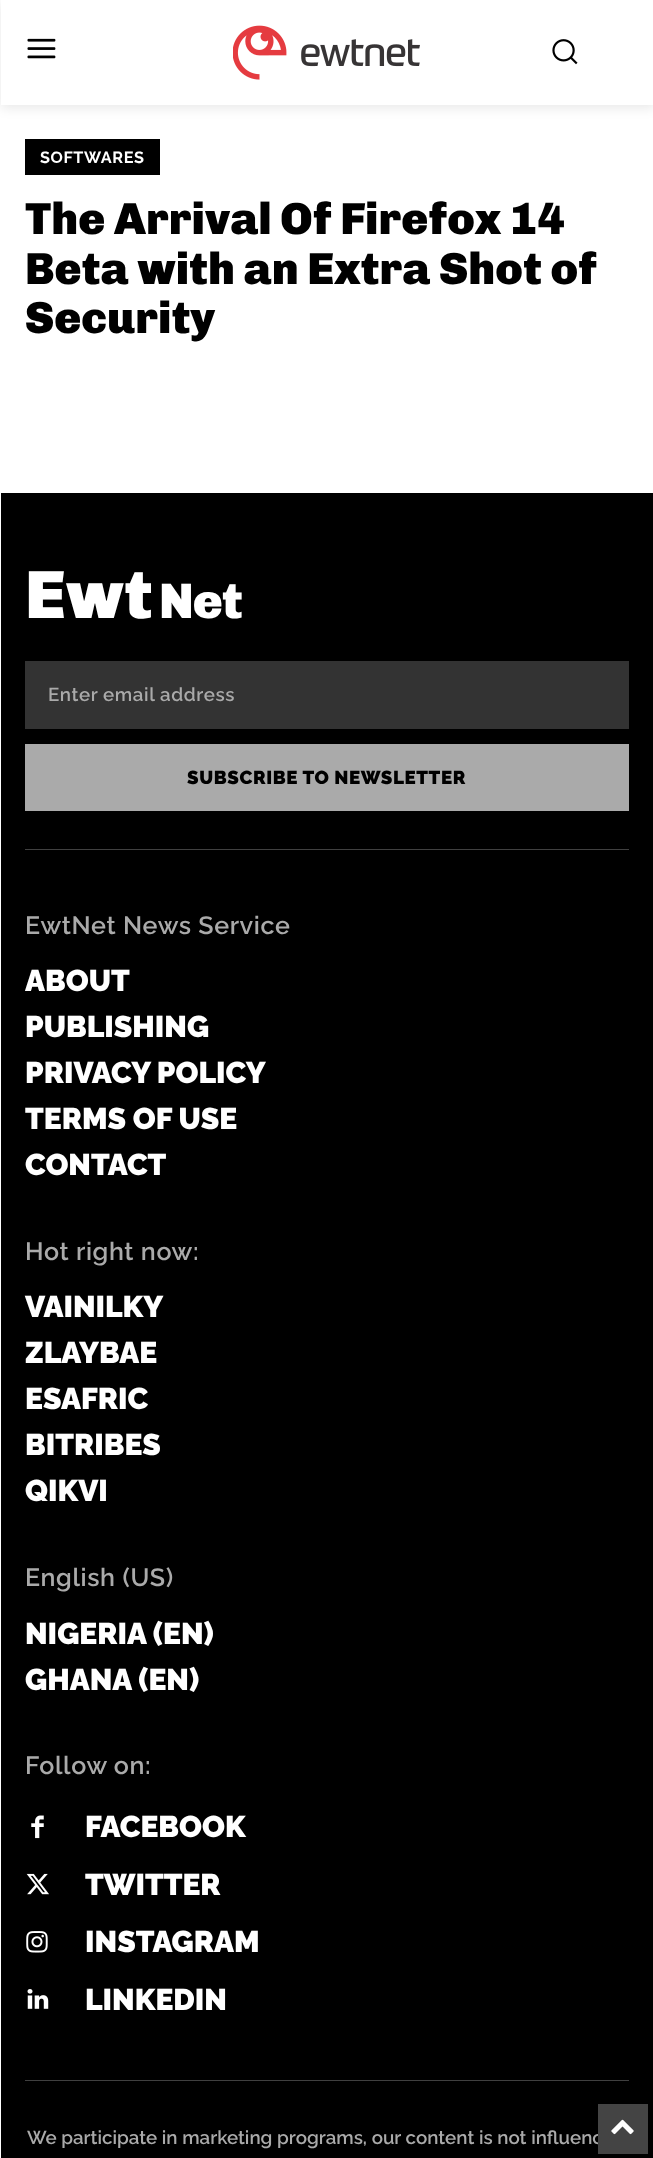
<svg xmlns="http://www.w3.org/2000/svg" width="653" height="2158">
<defs>
<clipPath id="clip1"><path d="M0 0h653v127h-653zm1 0h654v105h-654z" clip-rule="evenodd"/></clipPath>
</defs>
<rect width="100%" height="100%" fill="#fff"/>
<image x="27" y="38" width="29" height="21" href="media/1.png"/>
<image x="233" y="25" width="187" height="55" href="media/2.png"/>
<image x="552" y="39" width="26" height="26" href="media/3.png"/>
<g clip-path="url(#clip1)">
<rect x="1" y="3" width="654" height="105" fill="#00000017" filter="blur(6px)"/>
</g>
<rect x="25" y="139" width="135" height="36" fill="#000"/>
<text x="40" y="163" style="font-family:Raleway;font-size:16.25px;font-weight:bold;letter-spacing:0.6px;fill:#fff">SOFTWARES</text>
<text x="25" y="234" style="font-family:Chivo;font-size:45px;font-weight:900;fill:#000">The Arrival Of Firefox 14</text>
<text x="25" y="284" style="font-family:Chivo;font-size:45px;font-weight:900;fill:#000">Beta with an Extra Shot of</text>
<text x="25" y="333" style="font-family:Chivo;font-size:45px;font-weight:900;fill:#000">Security</text>
<rect x="1" y="493" width="652" height="1665" fill="#000"/>
<rect x="25" y="849" width="604" height="1" fill="#404040"/>
<text x="25" y="618" style="font-family:Chivo;font-size:68px;font-weight:900;fill:#fff">Ewt</text>
<text x="159" y="618" style="font-family:Chivo;font-size:50px;font-weight:900;letter-spacing:-1px;fill:#fff">Net</text>
<rect x="25" y="661" width="604" height="68" fill="#333"/>
<text x="48" y="701" style="font-family:Raleway;font-size:18.75px;font-weight:600;letter-spacing:0.6px;fill:#aaa">Enter email address</text>
<rect x="25" y="744" width="604" height="67" fill="#aaa"/>
<text x="187" y="784" style="font-family:Raleway;font-size:18.75px;font-weight:900;letter-spacing:0.6px;fill:#000">SUBSCRIBE TO NEWSLETTER</text>
<text x="25" y="934" style="font-family:Raleway;font-size:25px;font-weight:600;letter-spacing:0.6px;fill:#aaa">EwtNet News Service</text>
<text x="25" y="991" style="font-family:Raleway;font-size:30px;font-weight:900;fill:#fff">ABOUT</text>
<text x="25" y="1037" style="font-family:Raleway;font-size:30px;font-weight:900;fill:#fff">PUBLISHING</text>
<text x="25" y="1083" style="font-family:Raleway;font-size:30px;font-weight:900;fill:#fff">PRIVACY POLICY</text>
<text x="25" y="1129" style="font-family:Raleway;font-size:30px;font-weight:900;fill:#fff">TERMS OF USE</text>
<text x="25" y="1175" style="font-family:Raleway;font-size:30px;font-weight:900;fill:#fff">CONTACT</text>
<text x="25" y="1260" style="font-family:Raleway;font-size:25px;font-weight:600;letter-spacing:0.6px;fill:#aaa">Hot right now:</text>
<text x="25" y="1317" style="font-family:Raleway;font-size:30px;font-weight:900;fill:#fff">VAINILKY</text>
<text x="25" y="1363" style="font-family:Raleway;font-size:30px;font-weight:900;fill:#fff">ZLAYBAE</text>
<text x="25" y="1409" style="font-family:Raleway;font-size:30px;font-weight:900;fill:#fff">ESAFRIC</text>
<text x="25" y="1455" style="font-family:Raleway;font-size:30px;font-weight:900;fill:#fff">BITRIBES</text>
<text x="25" y="1501" style="font-family:Raleway;font-size:30px;font-weight:900;fill:#fff">QIKVI</text>
<text x="25" y="1586" style="font-family:Raleway;font-size:25px;font-weight:600;letter-spacing:0.6px;fill:#aaa">English (US)</text>
<text x="25" y="1644" style="font-family:Raleway;font-size:30px;font-weight:900;fill:#fff">NIGERIA (EN)</text>
<text x="25" y="1690" style="font-family:Raleway;font-size:30px;font-weight:900;fill:#fff">GHANA (EN)</text>
<text x="25" y="1774" style="font-family:Raleway;font-size:25px;font-weight:600;letter-spacing:0.6px;fill:#aaa">Follow on:</text>
<image x="31" y="1815" width="13" height="24" href="media/4.png"/>
<text x="85" y="1837" style="font-family:Raleway;font-size:30px;font-weight:900;fill:#fff">FACEBOOK</text>
<image x="26" y="1873" width="23" height="22" href="media/5.png"/>
<text x="85" y="1895" style="font-family:Raleway;font-size:30px;font-weight:900;fill:#fff">TWITTER</text>
<image x="26" y="1931" width="22" height="22" href="media/6.png"/>
<text x="85" y="1952" style="font-family:Raleway;font-size:30px;font-weight:900;fill:#fff">INSTAGRAM</text>
<image x="27" y="1989" width="22" height="20" href="media/7.png"/>
<text x="85" y="2010" style="font-family:Raleway;font-size:30px;font-weight:900;fill:#fff">LINKEDIN</text>
<rect x="25" y="2080" width="604" height="1" fill="#404040"/>
<text x="27" y="2144" style="font-family:Raleway;font-size:18.75px;font-weight:600;fill:#aaa">We participate in marketing programs, our content is not influenc</text>
<rect x="598" y="2104" width="50" height="50" fill="#444"/>
<image x="611" y="2119" width="23" height="16" href="media/8.png"/>
</svg>
